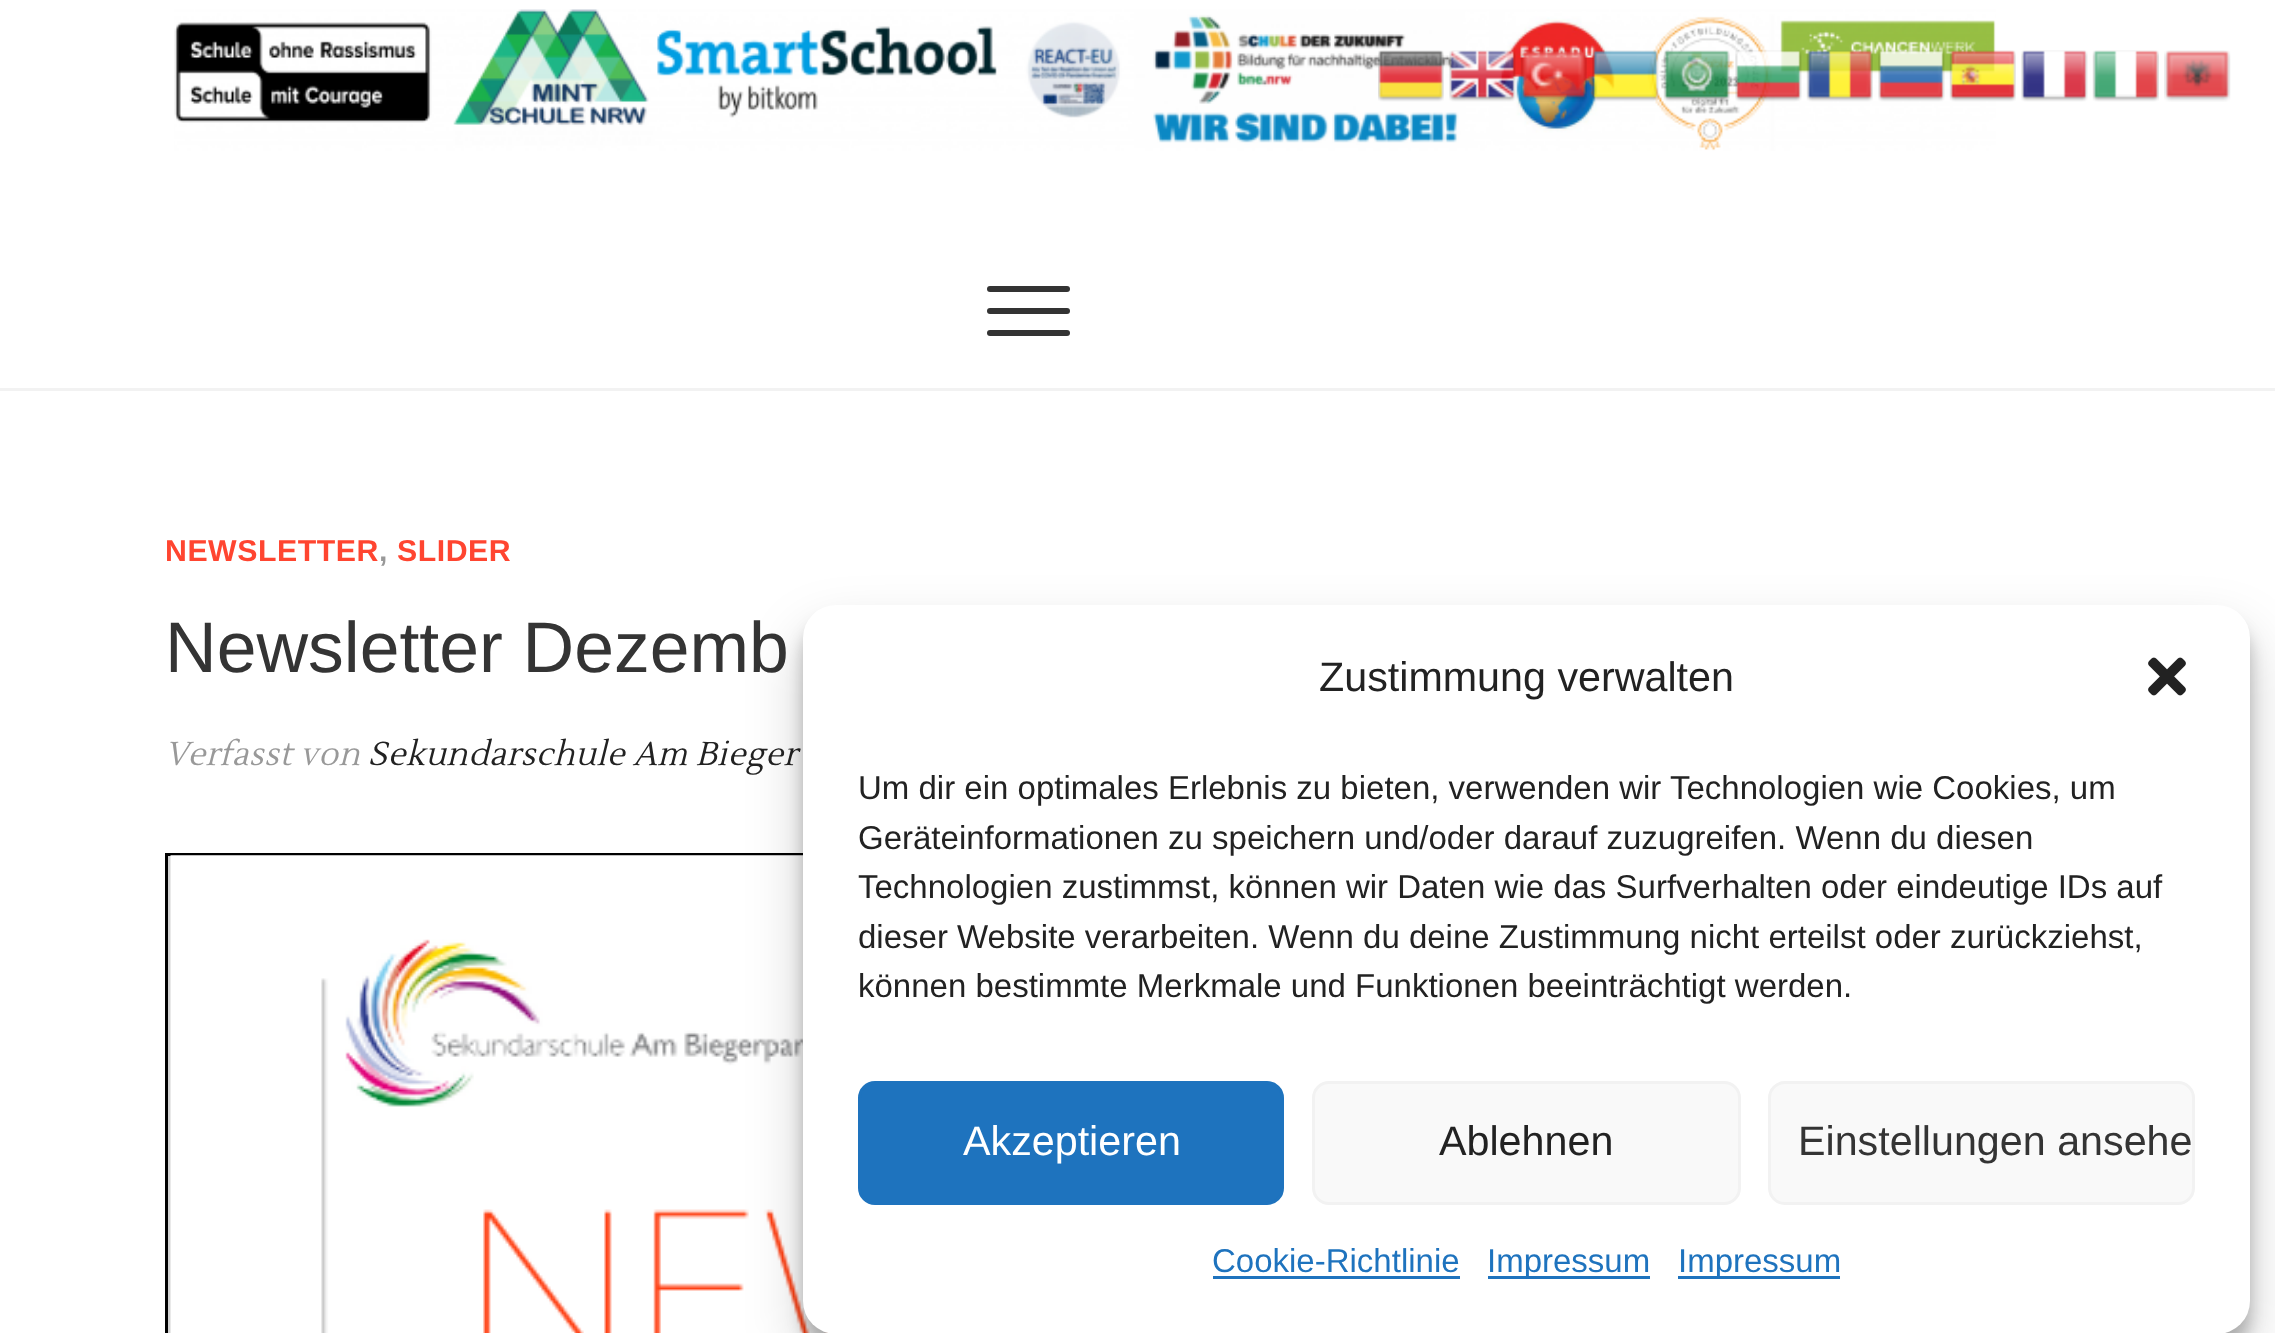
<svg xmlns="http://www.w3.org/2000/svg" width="2275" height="1333">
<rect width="100%" height="100%" fill="#fff"/>
<image x="174" y="9" width="1822" height="142" href="media/13.png"/>
<image x="1378" y="50" width="66" height="52" href="media/1.png"/>
<image x="1449" y="50" width="67" height="52" href="media/2.png"/>
<image x="1520" y="50" width="67" height="52" href="media/3.png"/>
<image x="1592" y="50" width="67" height="52" href="media/4.png"/>
<image x="1663" y="50" width="67" height="52" href="media/5.png"/>
<image x="1735" y="50" width="67" height="52" href="media/6.png"/>
<image x="1806" y="50" width="67" height="52" href="media/7.png"/>
<image x="1878" y="50" width="67" height="52" href="media/8.png"/>
<image x="1949" y="50" width="67" height="52" href="media/9.png"/>
<image x="2021" y="50" width="67" height="52" href="media/10.png"/>
<image x="2092" y="50" width="67" height="52" href="media/11.png"/>
<image x="2164" y="50" width="67" height="52" href="media/12.png"/>
<rect y="388" width="2275" height="3" fill="#f2f2f2"/>
<rect x="987" y="308" width="83" height="6" rx="3" fill="#333"/>
<rect x="987" y="286" width="83" height="6" rx="3" fill="#333"/>
<rect x="987" y="330" width="83" height="6" rx="3" fill="#333"/>
<text x="165" y="561" style="font-family:Arimo;font-size:30.25px;font-weight:bold;letter-spacing:0.55px;fill:#ff4530">NEWSLETTER</text>
<text x="379" y="561" style="font-family:Arimo;font-size:30.25px;font-weight:bold;letter-spacing:0.55px;fill:#999">,</text>
<text x="397" y="561" style="font-family:Arimo;font-size:30.25px;font-weight:bold;letter-spacing:0.55px;fill:#ff4530">SLIDER</text>
<text x="165" y="672" style="font-family:Arimo;font-size:71.5px;fill:#343434">Newsletter Dezemb</text>
<text x="165" y="765" style="font-family:Lustria;font-size:33px;font-style:italic;letter-spacing:0.55px;fill:#999">Verfasst von</text>
<text x="368" y="765" style="font-family:Lustria;font-size:33px;font-style:italic;letter-spacing:0.55px;fill:#222">Sekundarschule Am Bieger</text>
<rect x="168" y="856" width="3" height="477" fill="#d3d3d3"/>
<rect x="166.5" y="854.5" width="1950" height="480" fill="none" stroke="#000" stroke-width="3"/>
<image x="170" y="855" width="658" height="478" href="media/14.png"/>
<rect x="803" y="622" width="1447" height="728" rx="33" fill="#0000003b" filter="blur(8px)"/>
<rect x="803" y="633" width="1447" height="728" rx="33" fill="#00000030" filter="blur(27.5px)"/>
<rect x="803" y="605" width="1447" height="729" rx="33" fill="#fff"/>
<text x="1319" y="691" style="font-family:Arimo;font-size:41.25px;fill:#222">Zustimmung verwalten</text>
<image x="2148" y="657" width="38" height="39" href="media/15.png"/>
<text x="858" y="799" style="font-family:Arimo;font-size:33px;fill:#222">Um dir ein optimales Erlebnis zu bieten, verwenden wir Technologien wie Cookies, um</text>
<text x="858" y="849" style="font-family:Arimo;font-size:33px;fill:#222">Geräteinformationen zu speichern und/oder darauf zuzugreifen. Wenn du diesen</text>
<text x="858" y="898" style="font-family:Arimo;font-size:33px;fill:#222">Technologien zustimmst, können wir Daten wie das Surfverhalten oder eindeutige IDs auf</text>
<text x="858" y="948" style="font-family:Arimo;font-size:33px;fill:#222">dieser Website verarbeiten. Wenn du deine Zustimmung nicht erteilst oder zurückziehst,</text>
<text x="858" y="997" style="font-family:Arimo;font-size:33px;fill:#222">können bestimmte Merkmale und Funktionen beeinträchtigt werden.</text>
<rect x="859.5" y="1082.5" width="423" height="121" rx="15.5" fill="#1e73be" stroke="#1e73be" stroke-width="3"/>
<text x="963" y="1155" style="font-family:Arimo;font-size:41.25px;fill:#fff">Akzeptieren</text>
<rect x="1313.5" y="1082.5" width="426" height="121" rx="15.5" fill="#f9f9f9" stroke="#f2f2f2" stroke-width="3"/>
<text x="1439" y="1155" style="font-family:Arimo;font-size:41.25px;fill:#222">Ablehnen</text>
<rect x="1769.5" y="1082.5" width="424" height="121" rx="15.5" fill="#f9f9f9" stroke="#f2f2f2" stroke-width="3"/>
<text x="1798" y="1155" style="font-family:Arimo;font-size:41.25px;fill:#343434">Einstellungen ansehe</text>
<text x="1212" y="1272" style="font-family:Arimo;font-size:33px;fill:#1e73be">Cookie-Richtlinie</text>
<rect x="1213" y="1276" width="247" height="3" fill="#1e73be"/>
<rect x="1488" y="1276" width="162" height="3" fill="#1e73be"/>
<text x="1487" y="1272" style="font-family:Arimo;font-size:33px;fill:#1e73be">Impressum</text>
<rect x="1678" y="1276" width="162" height="3" fill="#1e73be"/>
<text x="1678" y="1272" style="font-family:Arimo;font-size:33px;fill:#1e73be">Impressum</text>
</svg>
